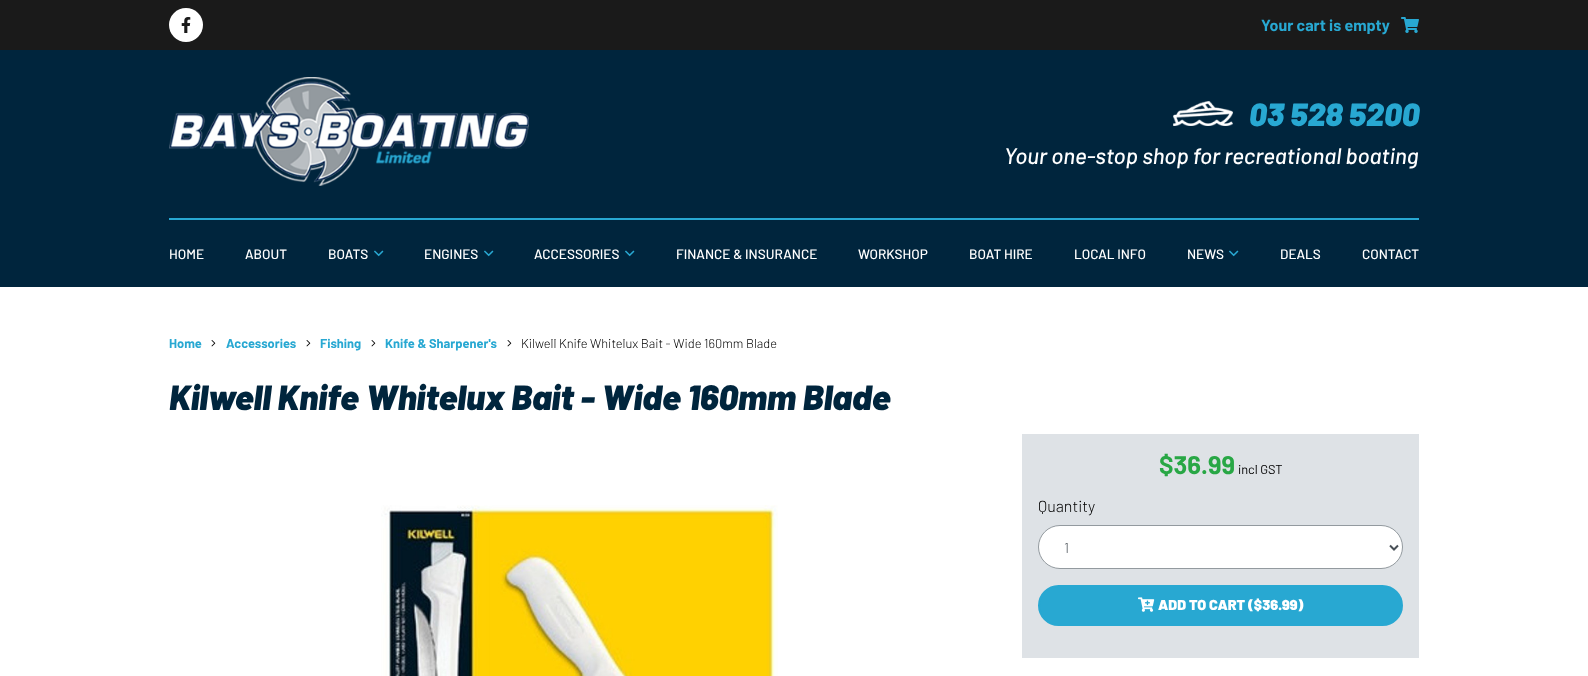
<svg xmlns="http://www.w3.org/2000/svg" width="1588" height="676">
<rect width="100%" height="100%" fill="#fff"/>
<rect y="50" width="1588" height="237" fill="#00253d"/>
<rect width="1588" height="50" fill="#1a1a1a"/>
<circle cx="186" cy="25" r="17" fill="#fff"/>
<image x="181" y="17" width="10" height="16" href="media/1.png"/>
<text x="1261" y="31" style="font-family:Barlow;font-size:16px;font-weight:bold;fill:#28a8d2">Your cart is empty</text>
<image x="1401" y="17" width="18" height="16" href="media/2.png"/>
<image x="169" y="77" width="360" height="109" href="media/3.png"/>
<image x="1173" y="101" width="60" height="25" href="media/4.png"/>
<text x="1249" y="126" style="font-family:Barlow;font-size:32px;font-weight:900;font-style:italic;fill:#28a8d2">03 528 5200</text>
<text x="1004" y="164" style="font-family:Barlow;font-size:22.4px;font-weight:500;font-style:italic;fill:#fff">Your one-stop shop for recreational boating</text>
<rect x="169" y="218" width="1250" height="2" fill="#28a8d2"/>
<text x="169" y="259" style="font-family:Barlow;font-size:13.6px;font-weight:500;fill:#fff">HOME</text>
<text x="245" y="259" style="font-family:Barlow;font-size:13.6px;font-weight:500;fill:#fff">ABOUT</text>
<text x="328" y="259" style="font-family:Barlow;font-size:13.6px;font-weight:500;fill:#fff">BOATS</text>
<image x="374" y="250" width="10" height="7" href="media/5.png"/>
<text x="424" y="259" style="font-family:Barlow;font-size:13.6px;font-weight:500;fill:#fff">ENGINES</text>
<image x="484" y="250" width="10" height="7" href="media/5.png"/>
<text x="534" y="259" style="font-family:Barlow;font-size:13.6px;font-weight:500;fill:#fff">ACCESSORIES</text>
<image x="625" y="250" width="10" height="7" href="media/5.png"/>
<text x="676" y="259" style="font-family:Barlow;font-size:13.6px;font-weight:500;fill:#fff">FINANCE &amp; INSURANCE</text>
<text x="858" y="259" style="font-family:Barlow;font-size:13.6px;font-weight:500;fill:#fff">WORKSHOP</text>
<text x="969" y="259" style="font-family:Barlow;font-size:13.6px;font-weight:500;fill:#fff">BOAT HIRE</text>
<text x="1074" y="259" style="font-family:Barlow;font-size:13.6px;font-weight:500;fill:#fff">LOCAL INFO</text>
<text x="1187" y="259" style="font-family:Barlow;font-size:13.6px;font-weight:500;fill:#fff">NEWS</text>
<image x="1229" y="250" width="10" height="7" href="media/5.png"/>
<text x="1280" y="259" style="font-family:Barlow;font-size:13.6px;font-weight:500;fill:#fff">DEALS</text>
<text x="1362" y="259" style="font-family:Barlow;font-size:13.6px;font-weight:500;fill:#fff">CONTACT</text>
<text x="169" y="348" style="font-family:Barlow;font-size:12.8px;font-weight:bold;fill:#28a8d2">Home</text>
<image x="211" y="340" width="5" height="7" href="media/6.png"/>
<text x="226" y="348" style="font-family:Barlow;font-size:12.8px;font-weight:bold;fill:#28a8d2">Accessories</text>
<image x="306" y="340" width="5" height="7" href="media/6.png"/>
<text x="320" y="348" style="font-family:Barlow;font-size:12.8px;font-weight:bold;fill:#28a8d2">Fishing</text>
<image x="371" y="340" width="5" height="7" href="media/6.png"/>
<text x="385" y="348" style="font-family:Barlow;font-size:12.8px;font-weight:bold;fill:#28a8d2">Knife &amp; Sharpener's</text>
<image x="507" y="340" width="5" height="7" href="media/6.png"/>
<text x="521" y="348" style="font-family:Barlow;font-size:12.8px;font-weight:300;fill:#000">Kilwell Knife Whitelux Bait - Wide 160mm Blade</text>
<text x="169" y="410" style="font-family:Barlow;font-size:35.2px;font-weight:900;font-style:italic;fill:#00253d">Kilwell Knife Whitelux Bait - Wide 160mm Blade</text>
<image x="381" y="505" width="397" height="171" href="media/7.png"/>
<rect x="1022" y="434" width="397" height="224" fill="#dee2e6"/>
<text x="1159" y="474" style="font-family:Barlow;font-size:25.5px;font-weight:bold;fill:#28a745">$36.99</text>
<text x="1238" y="474" style="font-family:Barlow;font-size:12.8px;fill:#000">incl GST</text>
<text x="1038" y="512" style="font-family:Barlow;font-size:16px;font-weight:300;fill:#000">Quantity</text>
<rect x="1038.5" y="525.5" width="364" height="43" rx="21.5" fill="#fff" stroke="#939a9f"/>
<path d="M1390 545.5l4 4l4-4" fill="none" stroke="#495057" stroke-width="2"/>
<text x="1064" y="553" style="font-family:Barlow;font-size:14.4px;font-weight:300;fill:#495057">1</text>
<rect x="1039" y="586" width="363" height="39" rx="19.5" fill="#28a8d2" stroke="#28a8d2" stroke-width="2"/>
<image x="1138" y="597" width="17" height="15" href="media/8.png"/>
<text x="1158" y="610" style="font-family:Barlow;font-size:14.4px;font-weight:900;fill:#fff">ADD TO CART ($36.99)</text>
</svg>
